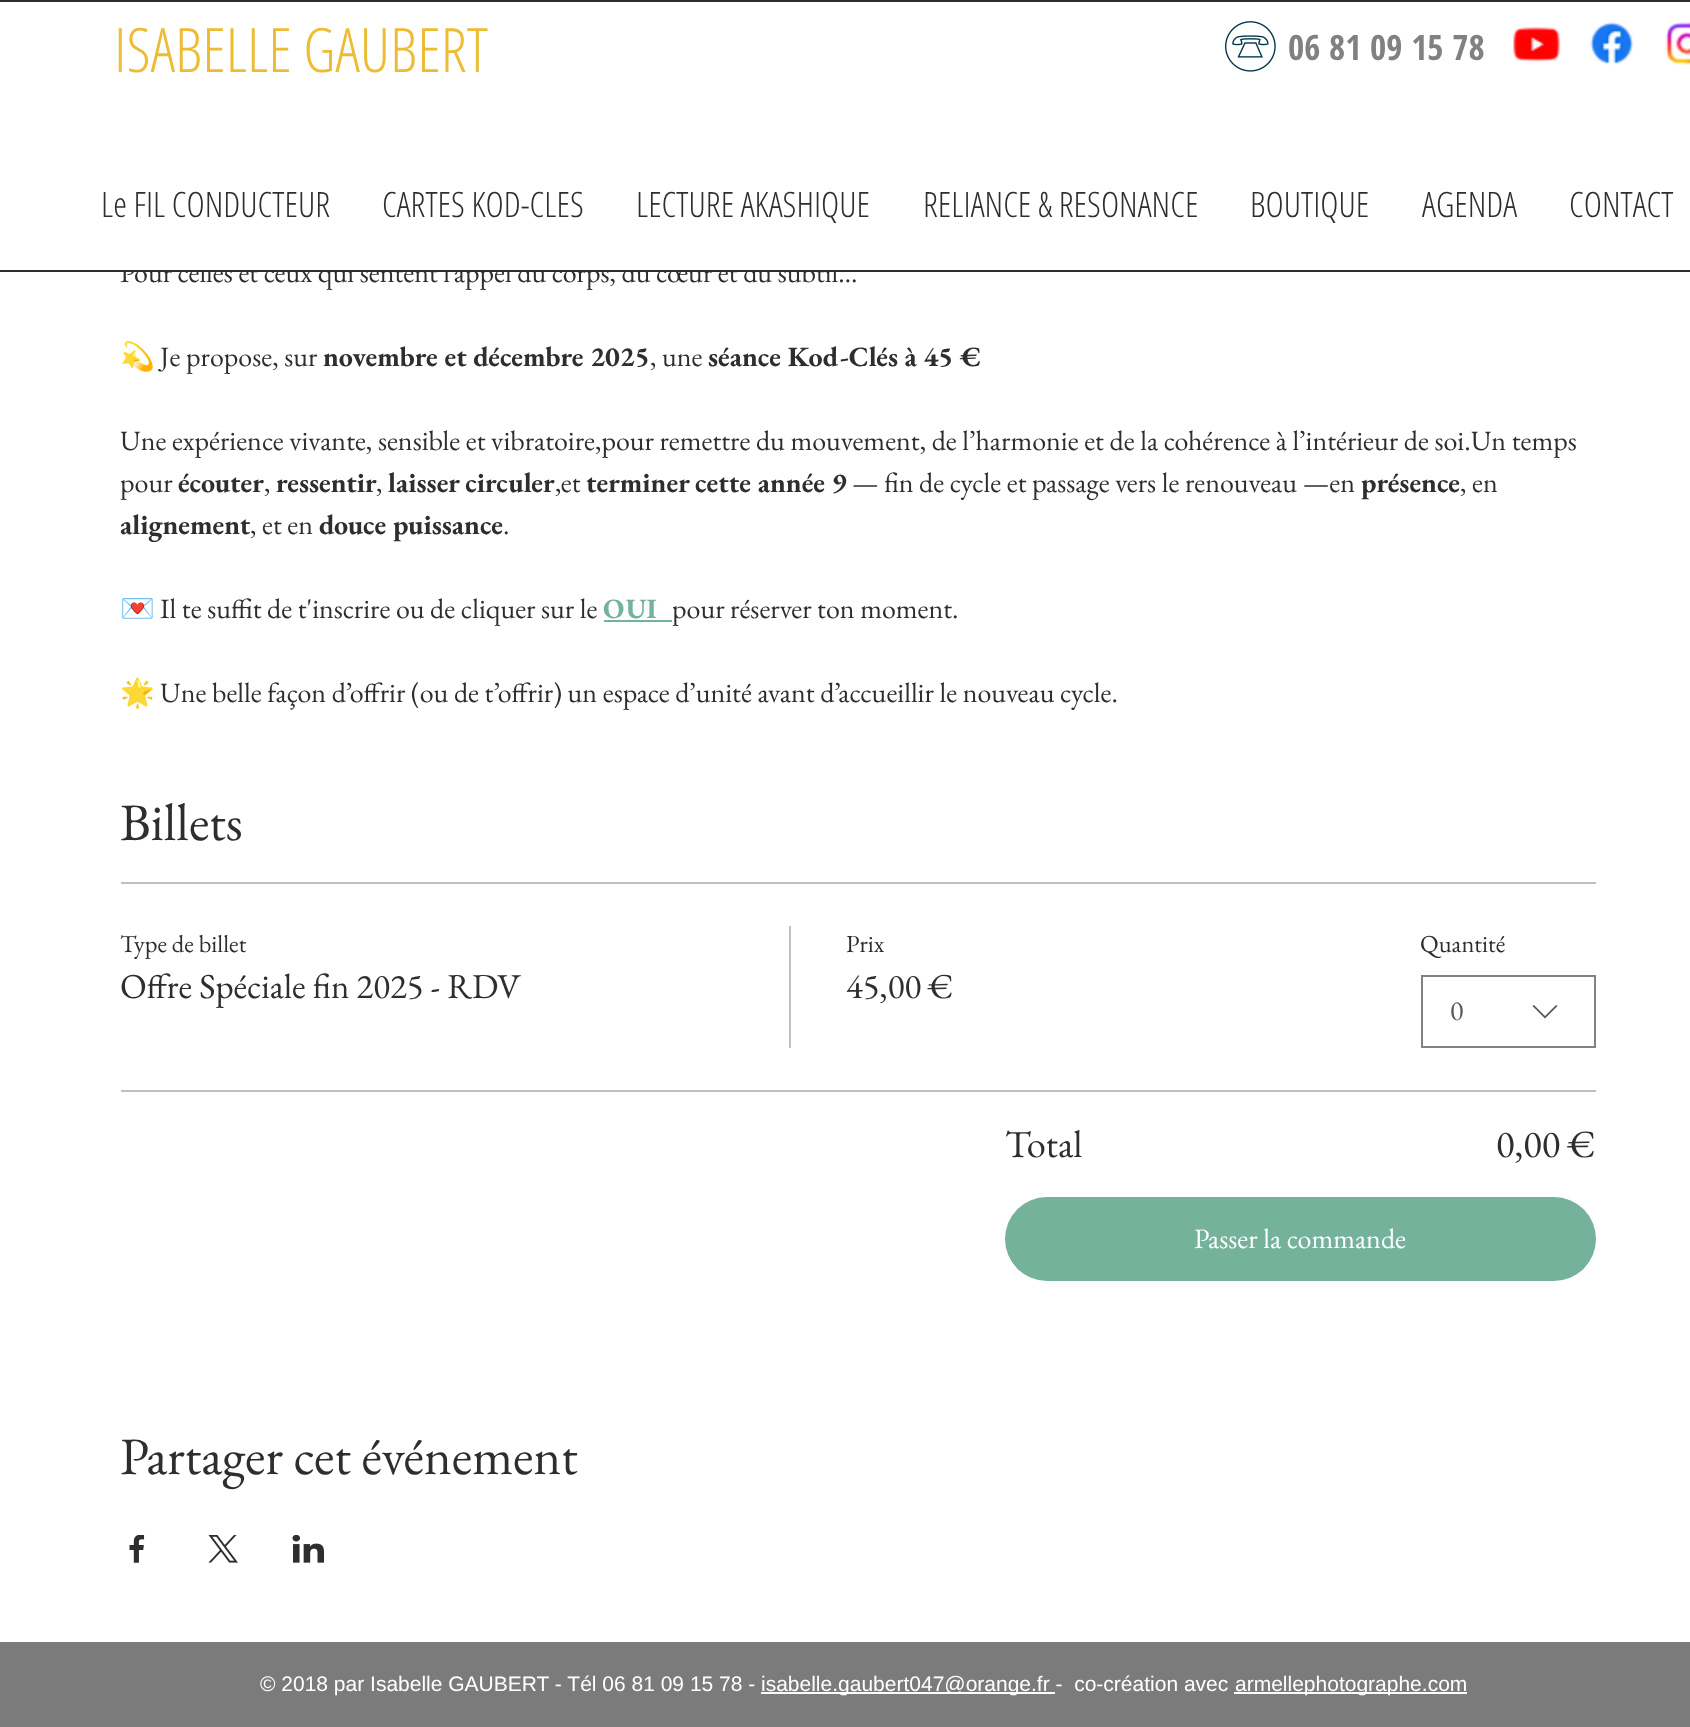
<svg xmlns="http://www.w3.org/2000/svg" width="1690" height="1727">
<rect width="100%" height="100%" fill="#fff"/>
<rect width="1690" height="2" fill="#302d2d"/>
<rect y="270" width="1690" height="2" fill="#302d2d"/>
<text x="120" y="282" style="font-family:EB Garamond;font-size:28px;fill:#302d2d">Pour celles et ceux qui sentent l’appel du corps, du cœur et du subtil…</text>
<rect x="121" y="262" width="715" height="8" fill="#fff"/>
<text x="114" y="72" style="font-family:Open Sans Condensed;font-size:61.25px;font-weight:300;fill:#edbc33">ISABELLE GAUBERT</text>
<image x="1225" y="21" width="51" height="51" href="media/1.png"/>
<text x="1288" y="60" style="font-family:Open Sans Condensed;font-size:35px;font-weight:bold;fill:#818181">06 81 09 15 78</text>
<image x="1513" y="27" width="48" height="35" href="media/2.png"/>
<image x="1590" y="22" width="44" height="43" href="media/3.png"/>
<image x="1665" y="22" width="25" height="43" href="media/4.png"/>
<text x="101" y="217" style="font-family:Open Sans Condensed;font-size:35px;font-weight:300;fill:#302d2d">Le FIL CONDUCTEUR</text>
<text x="382" y="217" style="font-family:Open Sans Condensed;font-size:35px;font-weight:300;fill:#302d2d">CARTES KOD-CLES</text>
<text x="636" y="217" style="font-family:Open Sans Condensed;font-size:35px;font-weight:300;fill:#302d2d">LECTURE AKASHIQUE</text>
<text x="923" y="217" style="font-family:Open Sans Condensed;font-size:35px;font-weight:300;fill:#302d2d">RELIANCE &amp; RESONANCE</text>
<text x="1250" y="217" style="font-family:Open Sans Condensed;font-size:35px;font-weight:300;fill:#302d2d">BOUTIQUE</text>
<text x="1422" y="217" style="font-family:Open Sans Condensed;font-size:35px;font-weight:300;fill:#302d2d">AGENDA</text>
<text x="1569" y="217" style="font-family:Open Sans Condensed;font-size:35px;font-weight:300;fill:#302d2d">CONTACT</text>
<text x="120" y="366" style="font-family:Noto Color Emoji;font-size:28px;fill:#302d2d">💫</text>
<text x="160" y="366" style="font-family:EB Garamond;font-size:28px;fill:#302d2d">Je propose, sur</text>
<text x="323" y="366" style="font-family:EB Garamond;font-size:28px;font-weight:bold;fill:#302d2d">novembre et décembre 2025</text>
<text x="650" y="366" style="font-family:EB Garamond;font-size:28px;fill:#302d2d">, une</text>
<text x="708" y="366" style="font-family:EB Garamond;font-size:28px;font-weight:bold;fill:#302d2d">séance Kod-Clés à 45 €</text>
<text x="120" y="450" style="font-family:EB Garamond;font-size:28px;fill:#302d2d">Une expérience vivante, sensible et vibratoire,pour remettre du mouvement, de l’harmonie et de la cohérence à l’intérieur de soi.Un temps</text>
<text x="120" y="492" style="font-family:EB Garamond;font-size:28px;fill:#302d2d">pour</text>
<text x="178" y="492" style="font-family:EB Garamond;font-size:28px;font-weight:bold;fill:#302d2d">écouter</text>
<text x="264" y="492" style="font-family:EB Garamond;font-size:28px;fill:#302d2d">,</text>
<text x="276" y="492" style="font-family:EB Garamond;font-size:28px;font-weight:bold;fill:#302d2d">ressentir</text>
<text x="376" y="492" style="font-family:EB Garamond;font-size:28px;fill:#302d2d">,</text>
<text x="388" y="492" style="font-family:EB Garamond;font-size:28px;font-weight:bold;fill:#302d2d">laisser circuler</text>
<text x="555" y="492" style="font-family:EB Garamond;font-size:28px;fill:#302d2d">,et</text>
<text x="586" y="492" style="font-family:EB Garamond;font-size:28px;font-weight:bold;fill:#302d2d">terminer cette année 9</text>
<text x="852" y="492" style="font-family:EB Garamond;font-size:28px;fill:#302d2d">— fin de cycle et passage vers le renouveau —en</text>
<text x="1361" y="492" style="font-family:EB Garamond;font-size:28px;font-weight:bold;fill:#302d2d">présence</text>
<text x="1460" y="492" style="font-family:EB Garamond;font-size:28px;fill:#302d2d">, en</text>
<text x="120" y="534" style="font-family:EB Garamond;font-size:28px;font-weight:bold;fill:#302d2d">alignement</text>
<text x="250" y="534" style="font-family:EB Garamond;font-size:28px;fill:#302d2d">, et en</text>
<text x="319" y="534" style="font-family:EB Garamond;font-size:28px;font-weight:bold;fill:#302d2d">douce puissance</text>
<text x="503" y="534" style="font-family:EB Garamond;font-size:28px;fill:#302d2d">.</text>
<text x="120" y="618" style="font-family:Noto Color Emoji;font-size:28px;fill:#302d2d">💌</text>
<text x="160" y="618" style="font-family:EB Garamond;font-size:28px;fill:#302d2d">Il te suffit de t'inscrire ou de cliquer sur le</text>
<text x="603" y="618" style="font-family:EB Garamond;font-size:28px;font-weight:bold;fill:#75b29c">OUI</text>
<rect x="604" y="620" width="68" height="2" fill="#75b29c"/>
<text x="672" y="618" style="font-family:EB Garamond;font-size:28px;fill:#302d2d">pour réserver ton moment.</text>
<text x="120" y="702" style="font-family:Noto Color Emoji;font-size:28px;fill:#302d2d">🌟</text>
<text x="160" y="702" style="font-family:EB Garamond;font-size:28px;fill:#302d2d">Une belle façon d’offrir (ou de t’offrir) un espace d’unité avant d’accueillir le nouveau cycle.</text>
<text x="120" y="840" style="font-family:EB Garamond;font-size:52.5px;fill:#302d2d">Billets</text>
<rect x="121" y="882" width="1475" height="2" fill="#c1c0c0"/>
<rect x="121" y="1090" width="1475" height="2" fill="#c1c0c0"/>
<text x="120" y="952" style="font-family:EB Garamond;font-size:24.5px;fill:#302d2d">Type de billet</text>
<text x="120" y="998" style="font-family:EB Garamond;font-size:35px;fill:#302d2d">Offre Spéciale fin 2025 - RDV</text>
<rect x="789" y="926" width="2" height="122" fill="#c1c0c0"/>
<text x="846" y="952" style="font-family:EB Garamond;font-size:24.5px;fill:#302d2d">Prix</text>
<text x="846" y="998" style="font-family:EB Garamond;font-size:35px;fill:#302d2d">45,00 €</text>
<text x="1420" y="952" style="font-family:EB Garamond;font-size:24.5px;fill:#302d2d">Quantité</text>
<rect x="1422" y="976" width="173" height="71" fill="none" stroke="#838181" stroke-width="2"/>
<text x="1450" y="1020" style="font-family:EB Garamond;font-size:28px;fill:#595757">0</text>
<path d="M1556 1005l1.5 1l-12.5 12.5l-12.5-12.5l1.5-1l11 11z" fill="#595757" fill-rule="evenodd"/>
<text x="1005" y="1157" style="font-family:EB Garamond;font-size:38.5px;fill:#302d2d">Total</text>
<text x="1496" y="1157" style="font-family:EB Garamond;font-size:38.5px;fill:#302d2d">0,00 €</text>
<rect x="1005" y="1197" width="591" height="84" rx="42" fill="#75b29c"/>
<text x="1194" y="1248" style="font-family:EB Garamond;font-size:28px;fill:#fff">Passer la commande</text>
<text x="120" y="1474" style="font-family:EB Garamond;font-size:52.5px;fill:#302d2d">Partager cet événement</text>
<image x="129" y="1535" width="16" height="28" href="media/5.png"/>
<image x="208" y="1535" width="30" height="28" href="media/6.png"/>
<image x="292" y="1535" width="33" height="28" href="media/7.png"/>
<rect y="1642" width="1690" height="85" fill="#7b7b7b"/>
<text x="260" y="1691" style="font-family:Liberation Sans;font-size:21px;fill:#fff">© 2018 par Isabelle GAUBERT - Tél 06 81 09 15 78 -</text>
<rect x="761" y="1692" width="294" height="2" fill="#fff"/>
<text x="761" y="1691" style="font-family:Liberation Sans;font-size:21px;fill:#fff" xml:space="preserve">isabelle.gaubert047@orange.fr -  co-création avec</text>
<rect x="1234" y="1692" width="233" height="2" fill="#fff"/>
<text x="1235" y="1691" style="font-family:Liberation Sans;font-size:21px;fill:#fff">armellephotographe.com</text>
</svg>
